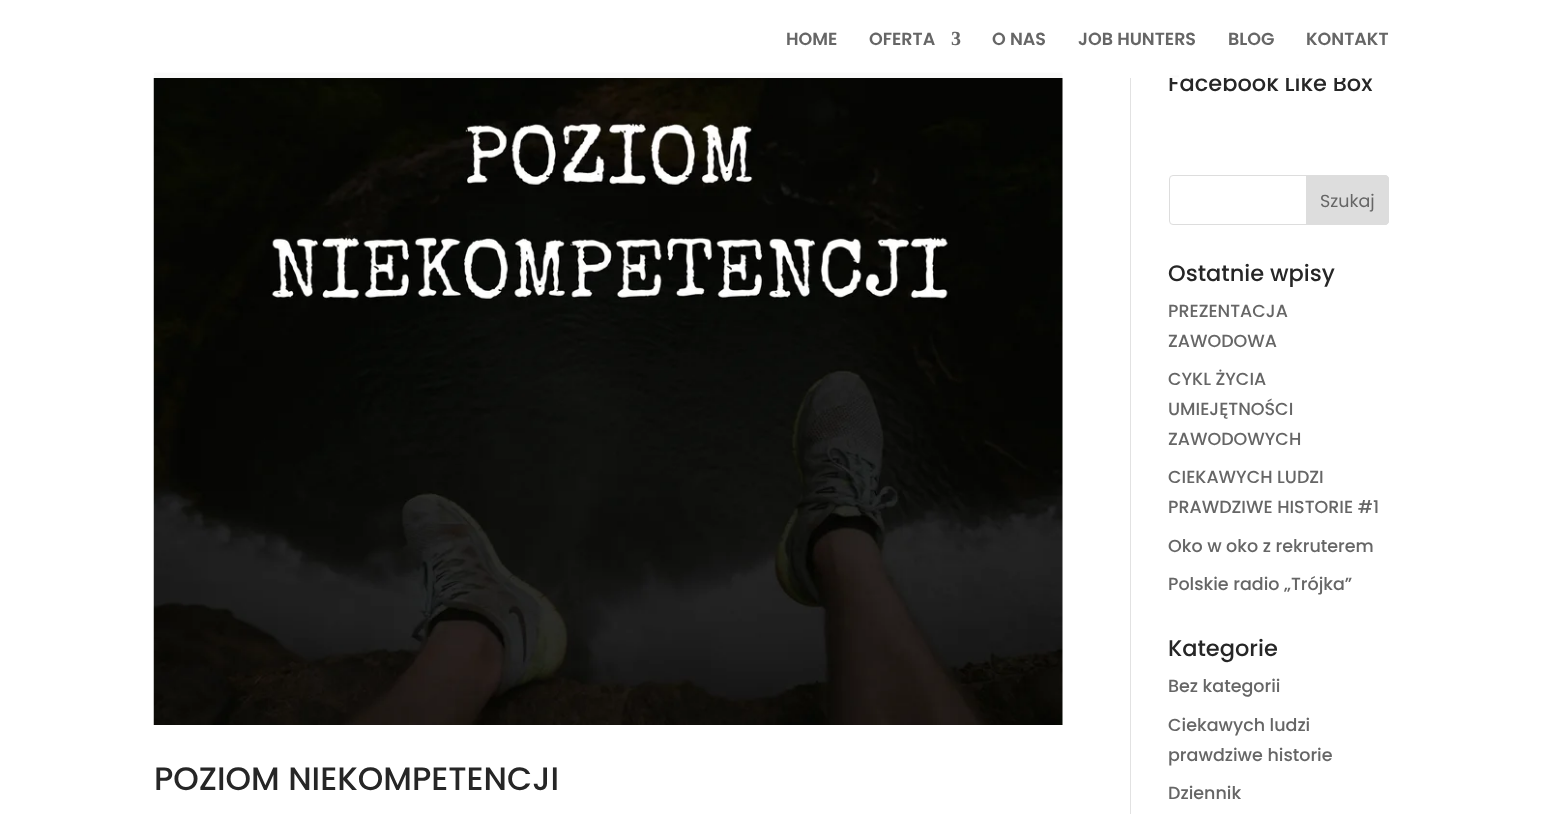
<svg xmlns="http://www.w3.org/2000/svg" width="1542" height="814">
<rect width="100%" height="100%" fill="#fff"/>
<rect x="1130" width="1" height="814" fill="#e2e2e2"/>
<image x="153" y="72" width="910" height="653" href="media/1.png"/>
<text x="1168" y="91" style="font-family:Poppins;font-size:22.5px;font-weight:500;fill:#262626">Facebook Like Box</text>
<rect x="153" width="1193" height="78" fill="#fffffffa"/>
<text x="786" y="45" style="font-family:Poppins;font-size:17.5px;font-weight:600;fill:#666">HOME</text>
<text x="869" y="45" style="font-family:Poppins;font-size:17.5px;font-weight:600;fill:#666">OFERTA</text>
<text x="951" y="45" style="font-family:Liberation Serif;font-size:20px;font-weight:bold;fill:#666">3</text>
<text x="992" y="45" style="font-family:Poppins;font-size:17.5px;font-weight:600;fill:#666">O NAS</text>
<text x="1078" y="45" style="font-family:Poppins;font-size:17.5px;font-weight:600;fill:#666">JOB HUNTERS</text>
<text x="1228" y="45" style="font-family:Poppins;font-size:17.5px;font-weight:600;fill:#666">BLOG</text>
<text x="1306" y="45" style="font-family:Poppins;font-size:17.5px;font-weight:600;fill:#666">KONTAKT</text>
<text x="154" y="790" style="font-family:Poppins;font-size:32.5px;font-weight:500;fill:#262626">POZIOM NIEKOMPETENCJI</text>
<rect x="1169.5" y="175.5" width="219" height="49" rx="3.5" fill="none" stroke="#ddd"/>
<path d="M1306.5 175.5h78.5c2 0 3.5 1.5 3.5 3.5v42c0 2-1.5 3.5-3.5 3.5h-78.5z" fill="#ddd" stroke="#ddd"/>
<text x="1320" y="207" style="font-family:Poppins;font-size:17.5px;fill:#666">Szukaj</text>
<text x="1168" y="281" style="font-family:Poppins;font-size:22.5px;font-weight:500;fill:#262626">Ostatnie wpisy</text>
<text x="1168" y="317" style="font-family:Poppins;font-size:17.5px;font-weight:500;fill:#666">PREZENTACJA</text>
<text x="1168" y="347" style="font-family:Poppins;font-size:17.5px;font-weight:500;fill:#666">ZAWODOWA</text>
<text x="1168" y="385" style="font-family:Poppins;font-size:17.5px;font-weight:500;fill:#666">CYKL ŻYCIA</text>
<text x="1168" y="415" style="font-family:Poppins;font-size:17.5px;font-weight:500;fill:#666">UMIEJĘTNOŚCI</text>
<text x="1168" y="445" style="font-family:Poppins;font-size:17.5px;font-weight:500;fill:#666">ZAWODOWYCH</text>
<text x="1168" y="483" style="font-family:Poppins;font-size:17.5px;font-weight:500;fill:#666">CIEKAWYCH LUDZI</text>
<text x="1168" y="513" style="font-family:Poppins;font-size:17.5px;font-weight:500;fill:#666">PRAWDZIWE HISTORIE #1</text>
<text x="1168" y="552" style="font-family:Poppins;font-size:17.5px;font-weight:500;fill:#666">Oko w oko z rekruterem</text>
<text x="1168" y="590" style="font-family:Poppins;font-size:17.5px;font-weight:500;fill:#666">Polskie radio „Trójka”</text>
<text x="1168" y="656" style="font-family:Poppins;font-size:22.5px;font-weight:500;fill:#262626">Kategorie</text>
<text x="1168" y="692" style="font-family:Poppins;font-size:17.5px;font-weight:500;fill:#666">Bez kategorii</text>
<text x="1168" y="731" style="font-family:Poppins;font-size:17.5px;font-weight:500;fill:#666">Ciekawych ludzi</text>
<text x="1168" y="761" style="font-family:Poppins;font-size:17.5px;font-weight:500;fill:#666">prawdziwe historie</text>
<text x="1168" y="799" style="font-family:Poppins;font-size:17.5px;font-weight:500;fill:#666">Dziennik</text>
</svg>
